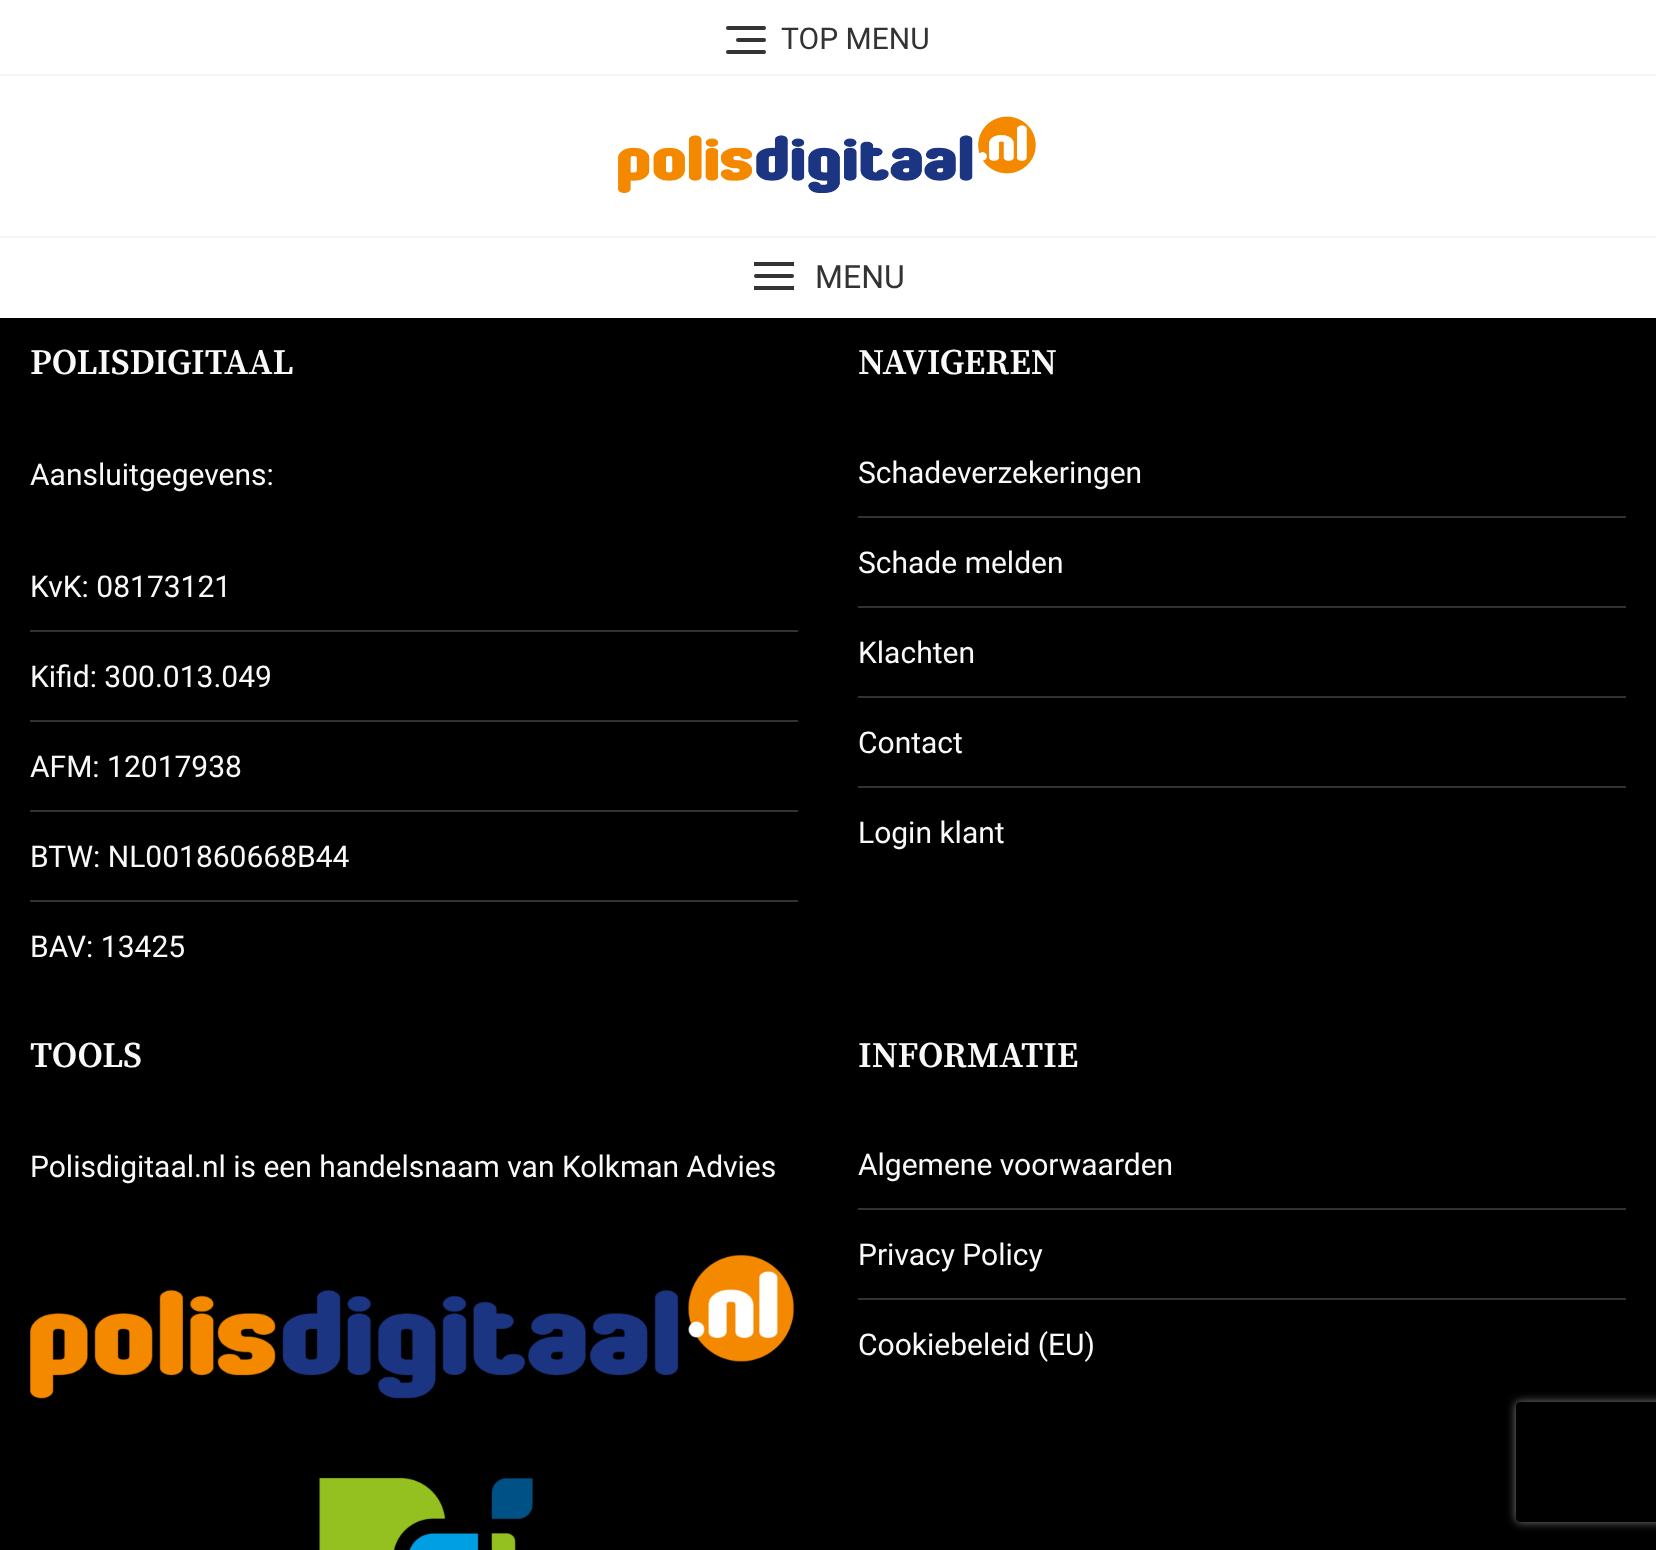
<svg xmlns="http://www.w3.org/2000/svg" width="1656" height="1550">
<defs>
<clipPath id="clip1"><path d="M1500 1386h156v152h-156zm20 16h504c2 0 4 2 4 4v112c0 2-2 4-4 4h-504c-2 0-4-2-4-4v-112c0-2 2-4 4-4z" clip-rule="evenodd"/></clipPath>
</defs>
<rect width="100%" height="100%" fill="#fff"/>
<rect y="74" width="1656" height="2" fill="#f5f5f5"/>
<rect x="736" y="38" width="30" height="4" rx="2" fill="#333"/>
<rect x="726" y="26" width="40" height="4" rx="2" fill="#333"/>
<rect x="726" y="50" width="40" height="4" rx="2" fill="#333"/>
<text x="781" y="49" style="font-family:Roboto;font-size:30px;fill:#333">TOP MENU</text>
<rect y="236" width="1656" height="2" fill="#f5f5f5"/>
<image x="618" y="116" width="418" height="77" href="media/1.png"/>
<rect x="754" y="274" width="40" height="4" rx="2" fill="#333"/>
<rect x="754" y="262" width="40" height="4" fill="#333"/>
<rect x="754" y="286" width="40" height="4" fill="#333"/>
<text x="815" y="288" style="font-family:Roboto;font-size:32px;fill:#333">MENU</text>
<rect y="318" width="1656" height="1232" fill="#000"/>
<text x="30" y="374" style="font-family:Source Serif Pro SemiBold;font-size:36px;font-weight:600;fill:#faf9f9">POLISDIGITAAL</text>
<text x="30" y="485" style="font-family:Roboto;font-size:30px;fill:#faf9f9">Aansluitgegevens:</text>
<rect x="30" y="630" width="768" height="2" fill="#323232"/>
<text x="30" y="597" style="font-family:Roboto;font-size:30px;fill:#faf9f9">KvK: 08173121</text>
<rect x="30" y="720" width="768" height="2" fill="#323232"/>
<text x="30" y="687" style="font-family:Roboto;font-size:30px;fill:#faf9f9">Kifid: 300.013.049</text>
<rect x="30" y="810" width="768" height="2" fill="#323232"/>
<text x="30" y="777" style="font-family:Roboto;font-size:30px;fill:#faf9f9">AFM: 12017938</text>
<rect x="30" y="900" width="768" height="2" fill="#323232"/>
<text x="30" y="867" style="font-family:Roboto;font-size:30px;fill:#faf9f9">BTW: NL001860668B44</text>
<text x="30" y="957" style="font-family:Roboto;font-size:30px;fill:#faf9f9">BAV: 13425</text>
<text x="858" y="374" style="font-family:Source Serif Pro SemiBold;font-size:36px;font-weight:600;fill:#faf9f9">NAVIGEREN</text>
<rect x="858" y="516" width="768" height="2" fill="#323232"/>
<text x="858" y="483" style="font-family:Roboto;font-size:30px;fill:#faf9f9">Schadeverzekeringen</text>
<rect x="858" y="606" width="768" height="2" fill="#323232"/>
<text x="858" y="573" style="font-family:Roboto;font-size:30px;fill:#faf9f9">Schade melden</text>
<rect x="858" y="696" width="768" height="2" fill="#323232"/>
<text x="858" y="663" style="font-family:Roboto;font-size:30px;fill:#faf9f9">Klachten</text>
<rect x="858" y="786" width="768" height="2" fill="#323232"/>
<text x="858" y="753" style="font-family:Roboto;font-size:30px;fill:#faf9f9">Contact</text>
<text x="858" y="843" style="font-family:Roboto;font-size:30px;fill:#faf9f9">Login klant</text>
<text x="30" y="1067" style="font-family:Source Serif Pro SemiBold;font-size:36px;font-weight:600;fill:#faf9f9">TOOLS</text>
<text x="30" y="1177" style="font-family:Roboto;font-size:30px;fill:#faf9f9">Polisdigitaal.nl is een handelsnaam van Kolkman Advies</text>
<image x="30" y="1254" width="765" height="145" href="media/2.png"/>
<image x="319" y="1477" width="215" height="73" href="media/3.png"/>
<text x="858" y="1067" style="font-family:Source Serif Pro SemiBold;font-size:36px;font-weight:600;fill:#faf9f9">INFORMATIE</text>
<rect x="858" y="1208" width="768" height="2" fill="#323232"/>
<text x="858" y="1175" style="font-family:Roboto;font-size:30px;fill:#faf9f9">Algemene voorwaarden</text>
<rect x="858" y="1298" width="768" height="2" fill="#323232"/>
<text x="858" y="1265" style="font-family:Roboto;font-size:30px;fill:#faf9f9">Privacy Policy</text>
<text x="858" y="1355" style="font-family:Roboto;font-size:30px;fill:#faf9f9">Cookiebeleid (EU)</text>
<g clip-path="url(#clip1)">
<rect x="1516" y="1402" width="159" height="120" rx="4" fill="#808080" filter="blur(5px)"/>
</g>
</svg>
